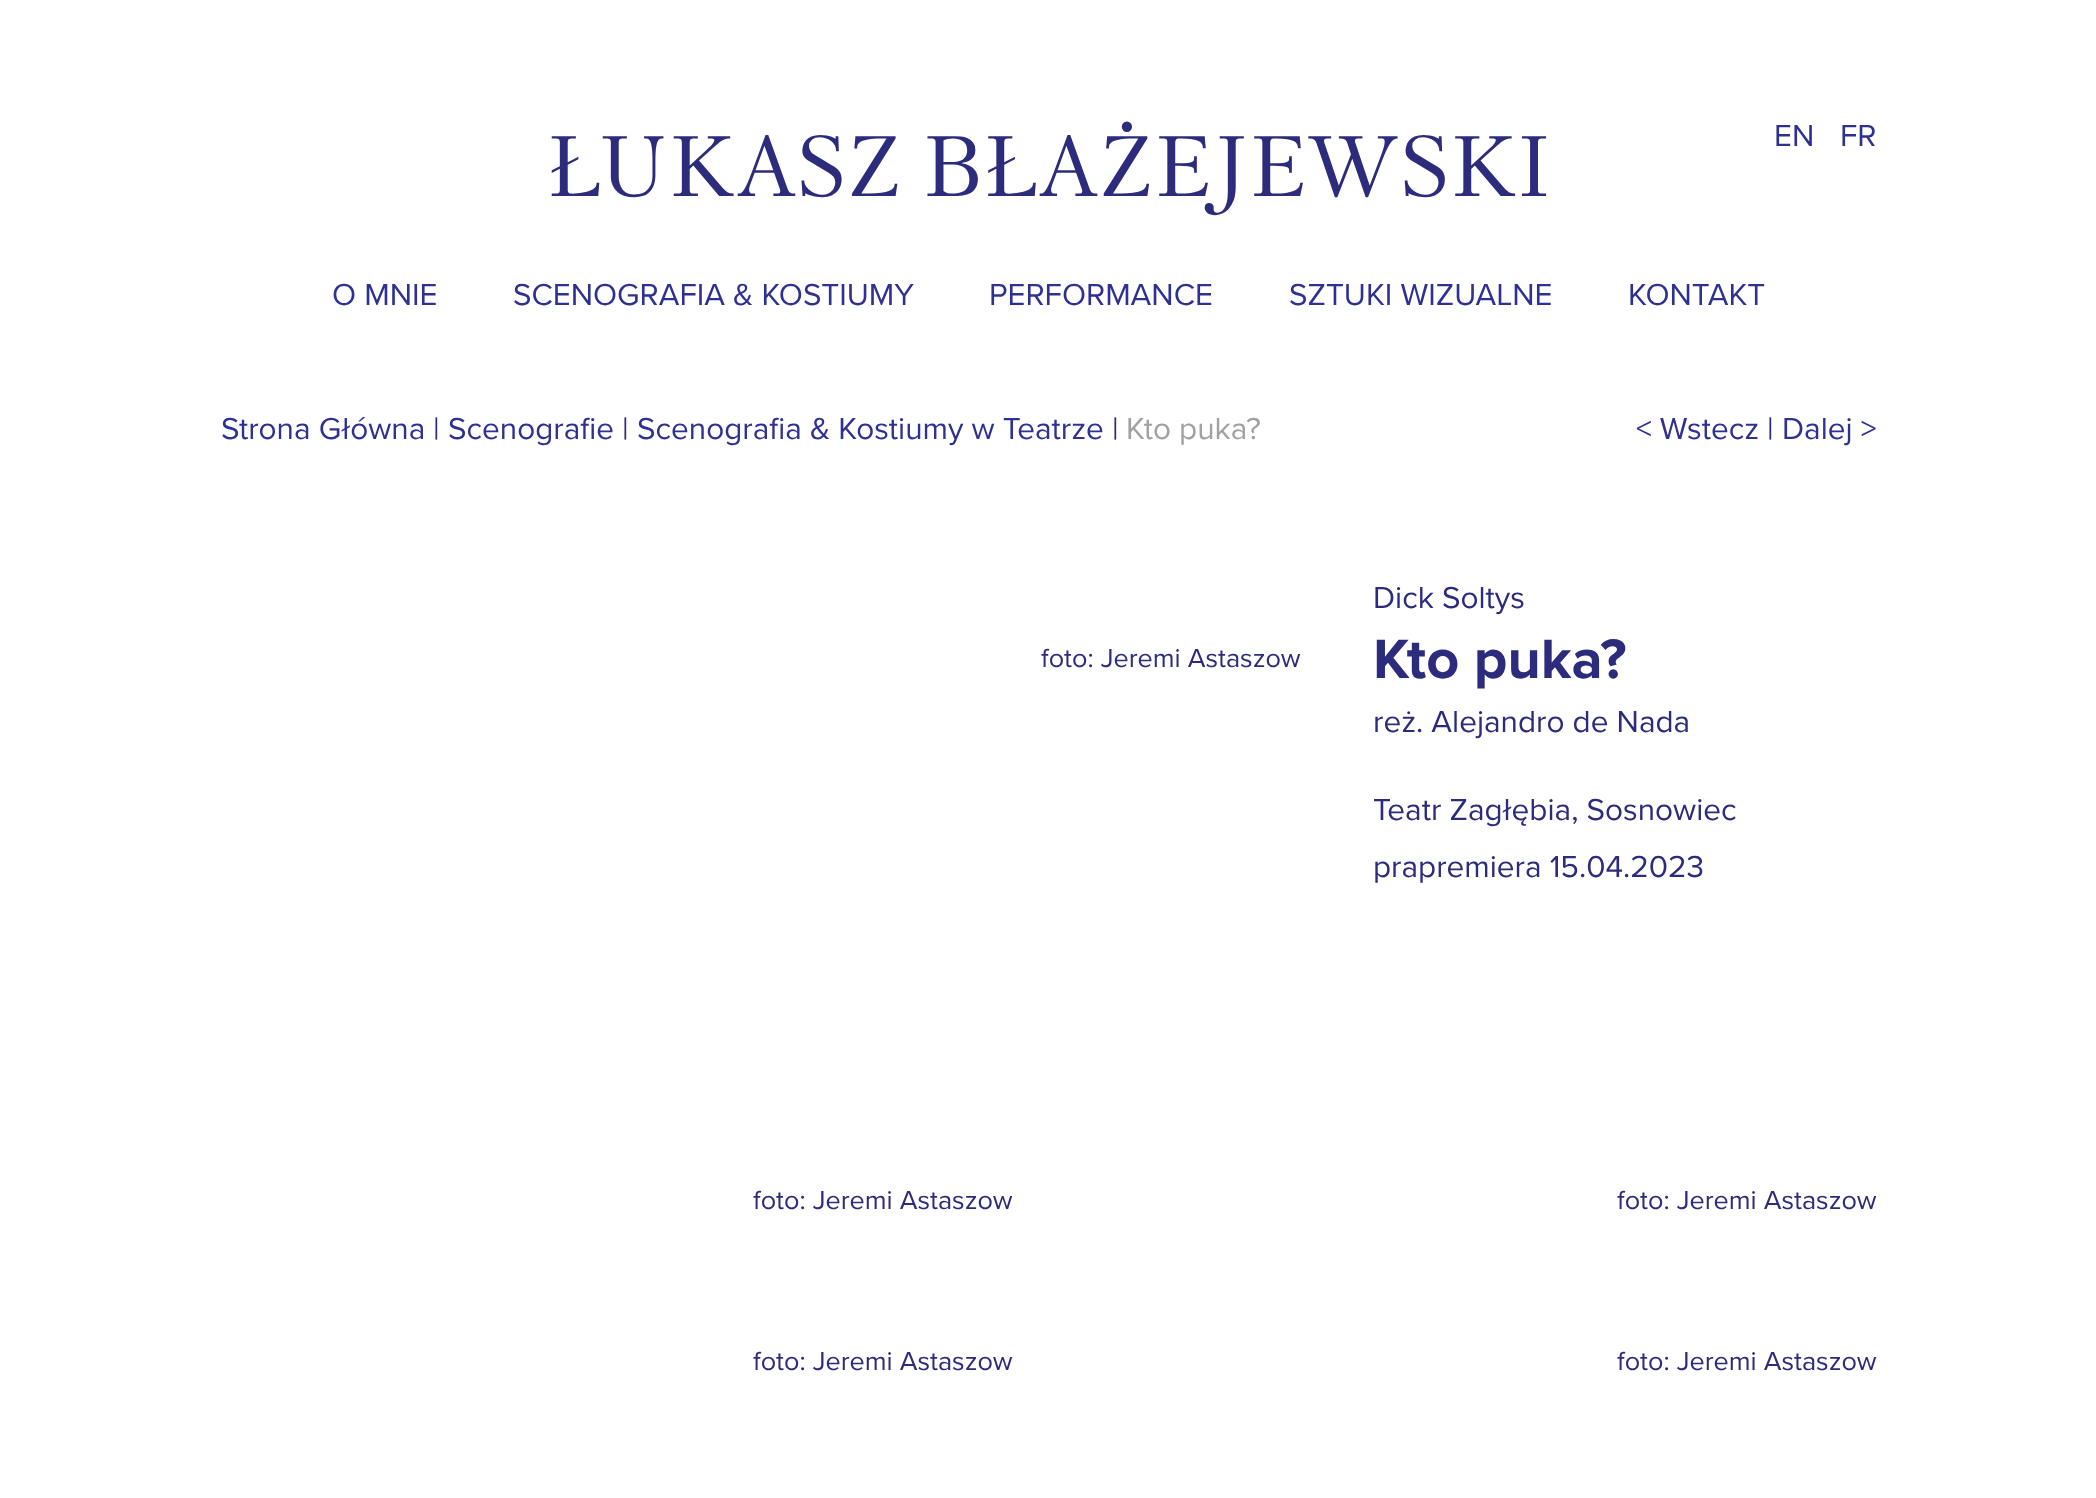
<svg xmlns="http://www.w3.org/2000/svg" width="2096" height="1498">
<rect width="100%" height="100%" fill="#fff"/>
<text x="546" y="196" style="font-family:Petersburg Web;font-size:85.5px;fill:#2c2b7c">ŁUKASZ BŁAŻEJEWSKI</text>
<text x="1774" y="146" style="font-family:Proxima Nova;font-size:31.5px;fill:#2e3192">EN</text>
<text x="1840" y="146" style="font-family:Proxima Nova;font-size:31.5px;fill:#2e3192">FR</text>
<text x="332" y="305" style="font-family:Proxima Nova;font-size:31.5px;fill:#2e3192">O MNIE</text>
<text x="513" y="305" style="font-family:Proxima Nova;font-size:31.5px;fill:#2e3192">SCENOGRAFIA &amp; KOSTIUMY</text>
<text x="989" y="305" style="font-family:Proxima Nova;font-size:31.5px;fill:#2e3192">PERFORMANCE</text>
<text x="1289" y="305" style="font-family:Proxima Nova;font-size:31.5px;fill:#2e3192">SZTUKI WIZUALNE</text>
<text x="1628" y="305" style="font-family:Proxima Nova;font-size:31.5px;fill:#2e3192">KONTAKT</text>
<text x="221" y="439" style="font-family:Proxima Nova;font-size:31.5px;fill:#2e3192">Strona Główna</text>
<text x="433" y="439" style="font-family:Proxima Nova;font-size:31.5px;fill:#2c2b7c">|</text>
<text x="448" y="439" style="font-family:Proxima Nova;font-size:31.5px;fill:#2e3192">Scenografie</text>
<text x="622" y="439" style="font-family:Proxima Nova;font-size:31.5px;fill:#2c2b7c">|</text>
<text x="637" y="439" style="font-family:Proxima Nova;font-size:31.5px;fill:#2e3192">Scenografia &amp; Kostiumy w Teatrze</text>
<text x="1112" y="439" style="font-family:Proxima Nova;font-size:31.5px;fill:#2c2b7c">|</text>
<text x="1126" y="439" style="font-family:Proxima Nova;font-size:31.5px;fill:#a1a1a1">Kto puka?</text>
<text x="1636" y="439" style="font-family:Proxima Nova;font-size:31.5px;fill:#2e3192">&lt; Wstecz</text>
<text x="1767" y="439" style="font-family:Proxima Nova;font-size:31.5px;fill:#2c2b7c">|</text>
<text x="1782" y="439" style="font-family:Proxima Nova;font-size:31.5px;fill:#2e3192">Dalej &gt;</text>
<text x="1041" y="667" style="font-family:Proxima Nova;font-size:27px;fill:#2c2b7c">foto: Jeremi Astaszow</text>
<text x="1373" y="608" style="font-family:Proxima Nova;font-size:31.5px;fill:#2c2b7c">Dick Soltys</text>
<text x="1373" y="678" style="font-family:Proxima Nova;font-size:57.5px;font-weight:bold;fill:#2c2b7c">Kto puka?</text>
<text x="1373" y="732" style="font-family:Proxima Nova;font-size:31.5px;fill:#2c2b7c">reż. Alejandro de Nada</text>
<text x="1373" y="820" style="font-family:Proxima Nova;font-size:31.5px;fill:#2c2b7c">Teatr Zagłębia, Sosnowiec</text>
<text x="1373" y="877" style="font-family:Proxima Nova;font-size:31.5px;fill:#2c2b7c">prapremiera 15.04.2023</text>
<text x="753" y="1209" style="font-family:Proxima Nova;font-size:27px;fill:#2c2b7c">foto: Jeremi Astaszow</text>
<text x="1617" y="1209" style="font-family:Proxima Nova;font-size:27px;fill:#2c2b7c">foto: Jeremi Astaszow</text>
<text x="753" y="1370" style="font-family:Proxima Nova;font-size:27px;fill:#2c2b7c">foto: Jeremi Astaszow</text>
<text x="1617" y="1370" style="font-family:Proxima Nova;font-size:27px;fill:#2c2b7c">foto: Jeremi Astaszow</text>
</svg>
